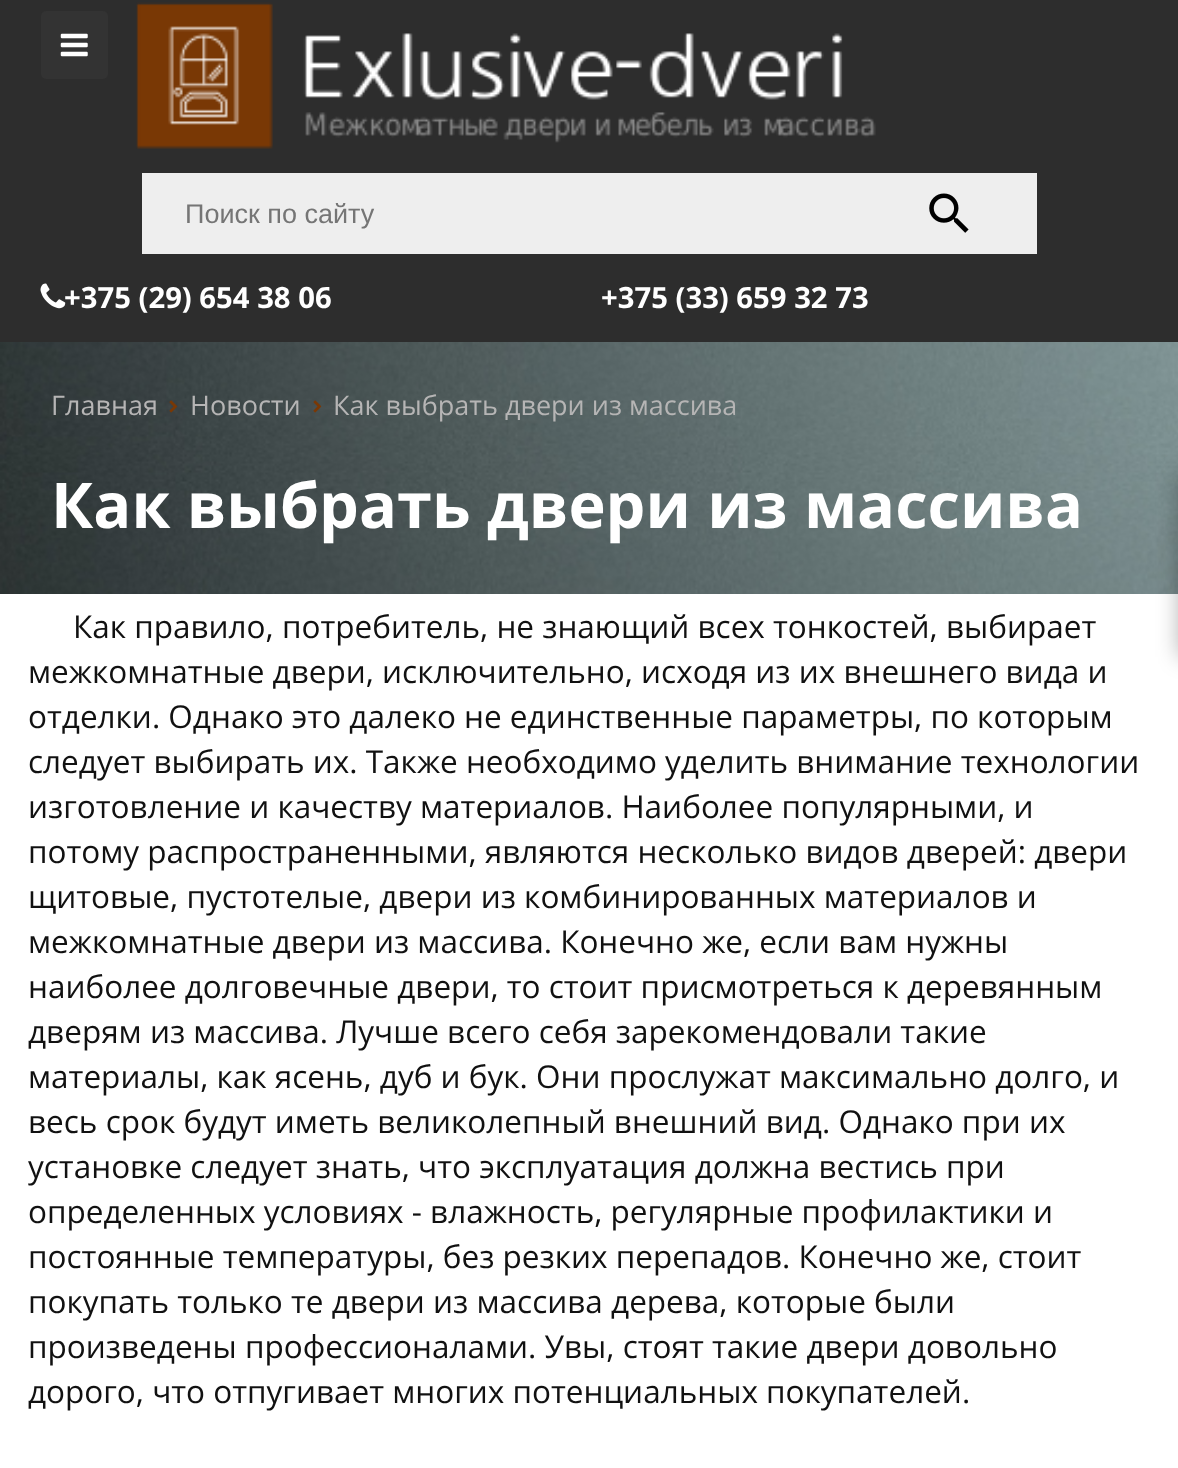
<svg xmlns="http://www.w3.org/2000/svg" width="1178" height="1468">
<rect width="100%" height="100%" fill="#fff"/>
<rect width="1178" height="342" fill="#2d2d2d"/>
<rect x="41" y="11" width="67" height="68" rx="5" fill="#333"/>
<image x="60" y="33" width="28" height="24" href="media/1.png"/>
<image x="136" y="2" width="740" height="147" href="media/2.png"/>
<rect x="142" y="173" width="895" height="81" fill="#eee"/>
<text x="185" y="223" style="font-family:Liberation Sans;font-size:27px;fill:#757575">Поиск по сайту</text>
<image x="929" y="193" width="40" height="40" href="media/3.png"/>
<image x="40" y="283" width="26" height="26" href="media/4.png"/>
<text x="64" y="308" style="font-family:Open Sans;font-size:29.25px;font-weight:bold;fill:#fff">+375 (29) 654 38 06</text>
<text x="601" y="308" style="font-family:Open Sans;font-size:29.25px;font-weight:bold;fill:#fff">+375 (33) 659 32 73</text>
<image x="0" y="342" width="1178" height="252" href="media/5.png"/>
<text x="51" y="415" style="font-family:Open Sans;font-size:27px;fill:#b6b5b5">Главная</text>
<image x="169" y="400" width="9" height="13" href="media/6.png"/>
<text x="190" y="415" style="font-family:Open Sans;font-size:27px;fill:#b6b5b5">Новости</text>
<image x="313" y="400" width="9" height="13" href="media/7.png"/>
<text x="333" y="415" style="font-family:Open Sans;font-size:27px;fill:#b6b5b5">Как выбрать двери из массива</text>
<text x="51" y="528" style="font-family:Open Sans;font-size:63px;font-weight:bold;fill:#fff">Как выбрать двери из массива</text>
<rect x="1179" y="473" width="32" height="184" fill="#0000004d" filter="blur(11px)"/>
<text x="73" y="638" style="font-family:Open Sans;font-size:31.5px;fill:#111">Как правило, потребитель, не знающий всех тонкостей, выбирает</text>
<text x="28" y="683" style="font-family:Open Sans;font-size:31.5px;fill:#111">межкомнатные двери, исключительно, исходя из их внешнего вида и</text>
<text x="28" y="728" style="font-family:Open Sans;font-size:31.5px;fill:#111">отделки. Однако это далеко не единственные параметры, по которым</text>
<text x="28" y="773" style="font-family:Open Sans;font-size:31.5px;fill:#111">следует выбирать их. Также необходимо уделить внимание технологии</text>
<text x="28" y="818" style="font-family:Open Sans;font-size:31.5px;fill:#111">изготовление и качеству материалов. Наиболее популярными, и</text>
<text x="28" y="863" style="font-family:Open Sans;font-size:31.5px;fill:#111">потому распространенными, являются несколько видов дверей: двери</text>
<text x="28" y="908" style="font-family:Open Sans;font-size:31.5px;fill:#111">щитовые, пустотелые, двери из комбинированных материалов и</text>
<text x="28" y="953" style="font-family:Open Sans;font-size:31.5px;fill:#111">межкомнатные двери из массива. Конечно же, если вам нужны</text>
<text x="28" y="998" style="font-family:Open Sans;font-size:31.5px;fill:#111">наиболее долговечные двери, то стоит присмотреться к деревянным</text>
<text x="28" y="1043" style="font-family:Open Sans;font-size:31.5px;fill:#111">дверям из массива. Лучше всего себя зарекомендовали такие</text>
<text x="28" y="1088" style="font-family:Open Sans;font-size:31.5px;fill:#111">материалы, как ясень, дуб и бук. Они прослужат максимально долго, и</text>
<text x="28" y="1133" style="font-family:Open Sans;font-size:31.5px;fill:#111">весь срок будут иметь великолепный внешний вид. Однако при их</text>
<text x="28" y="1178" style="font-family:Open Sans;font-size:31.5px;fill:#111">установке следует знать, что эксплуатация должна вестись при</text>
<text x="28" y="1223" style="font-family:Open Sans;font-size:31.5px;fill:#111">определенных условиях - влажность, регулярные профилактики и</text>
<text x="28" y="1268" style="font-family:Open Sans;font-size:31.5px;fill:#111">постоянные температуры, без резких перепадов. Конечно же, стоит</text>
<text x="28" y="1313" style="font-family:Open Sans;font-size:31.5px;fill:#111">покупать только те двери из массива дерева, которые были</text>
<text x="28" y="1358" style="font-family:Open Sans;font-size:31.5px;fill:#111">произведены профессионалами. Увы, стоят такие двери довольно</text>
<text x="28" y="1403" style="font-family:Open Sans;font-size:31.5px;fill:#111">дорого, что отпугивает многих потенциальных покупателей.</text>
</svg>
